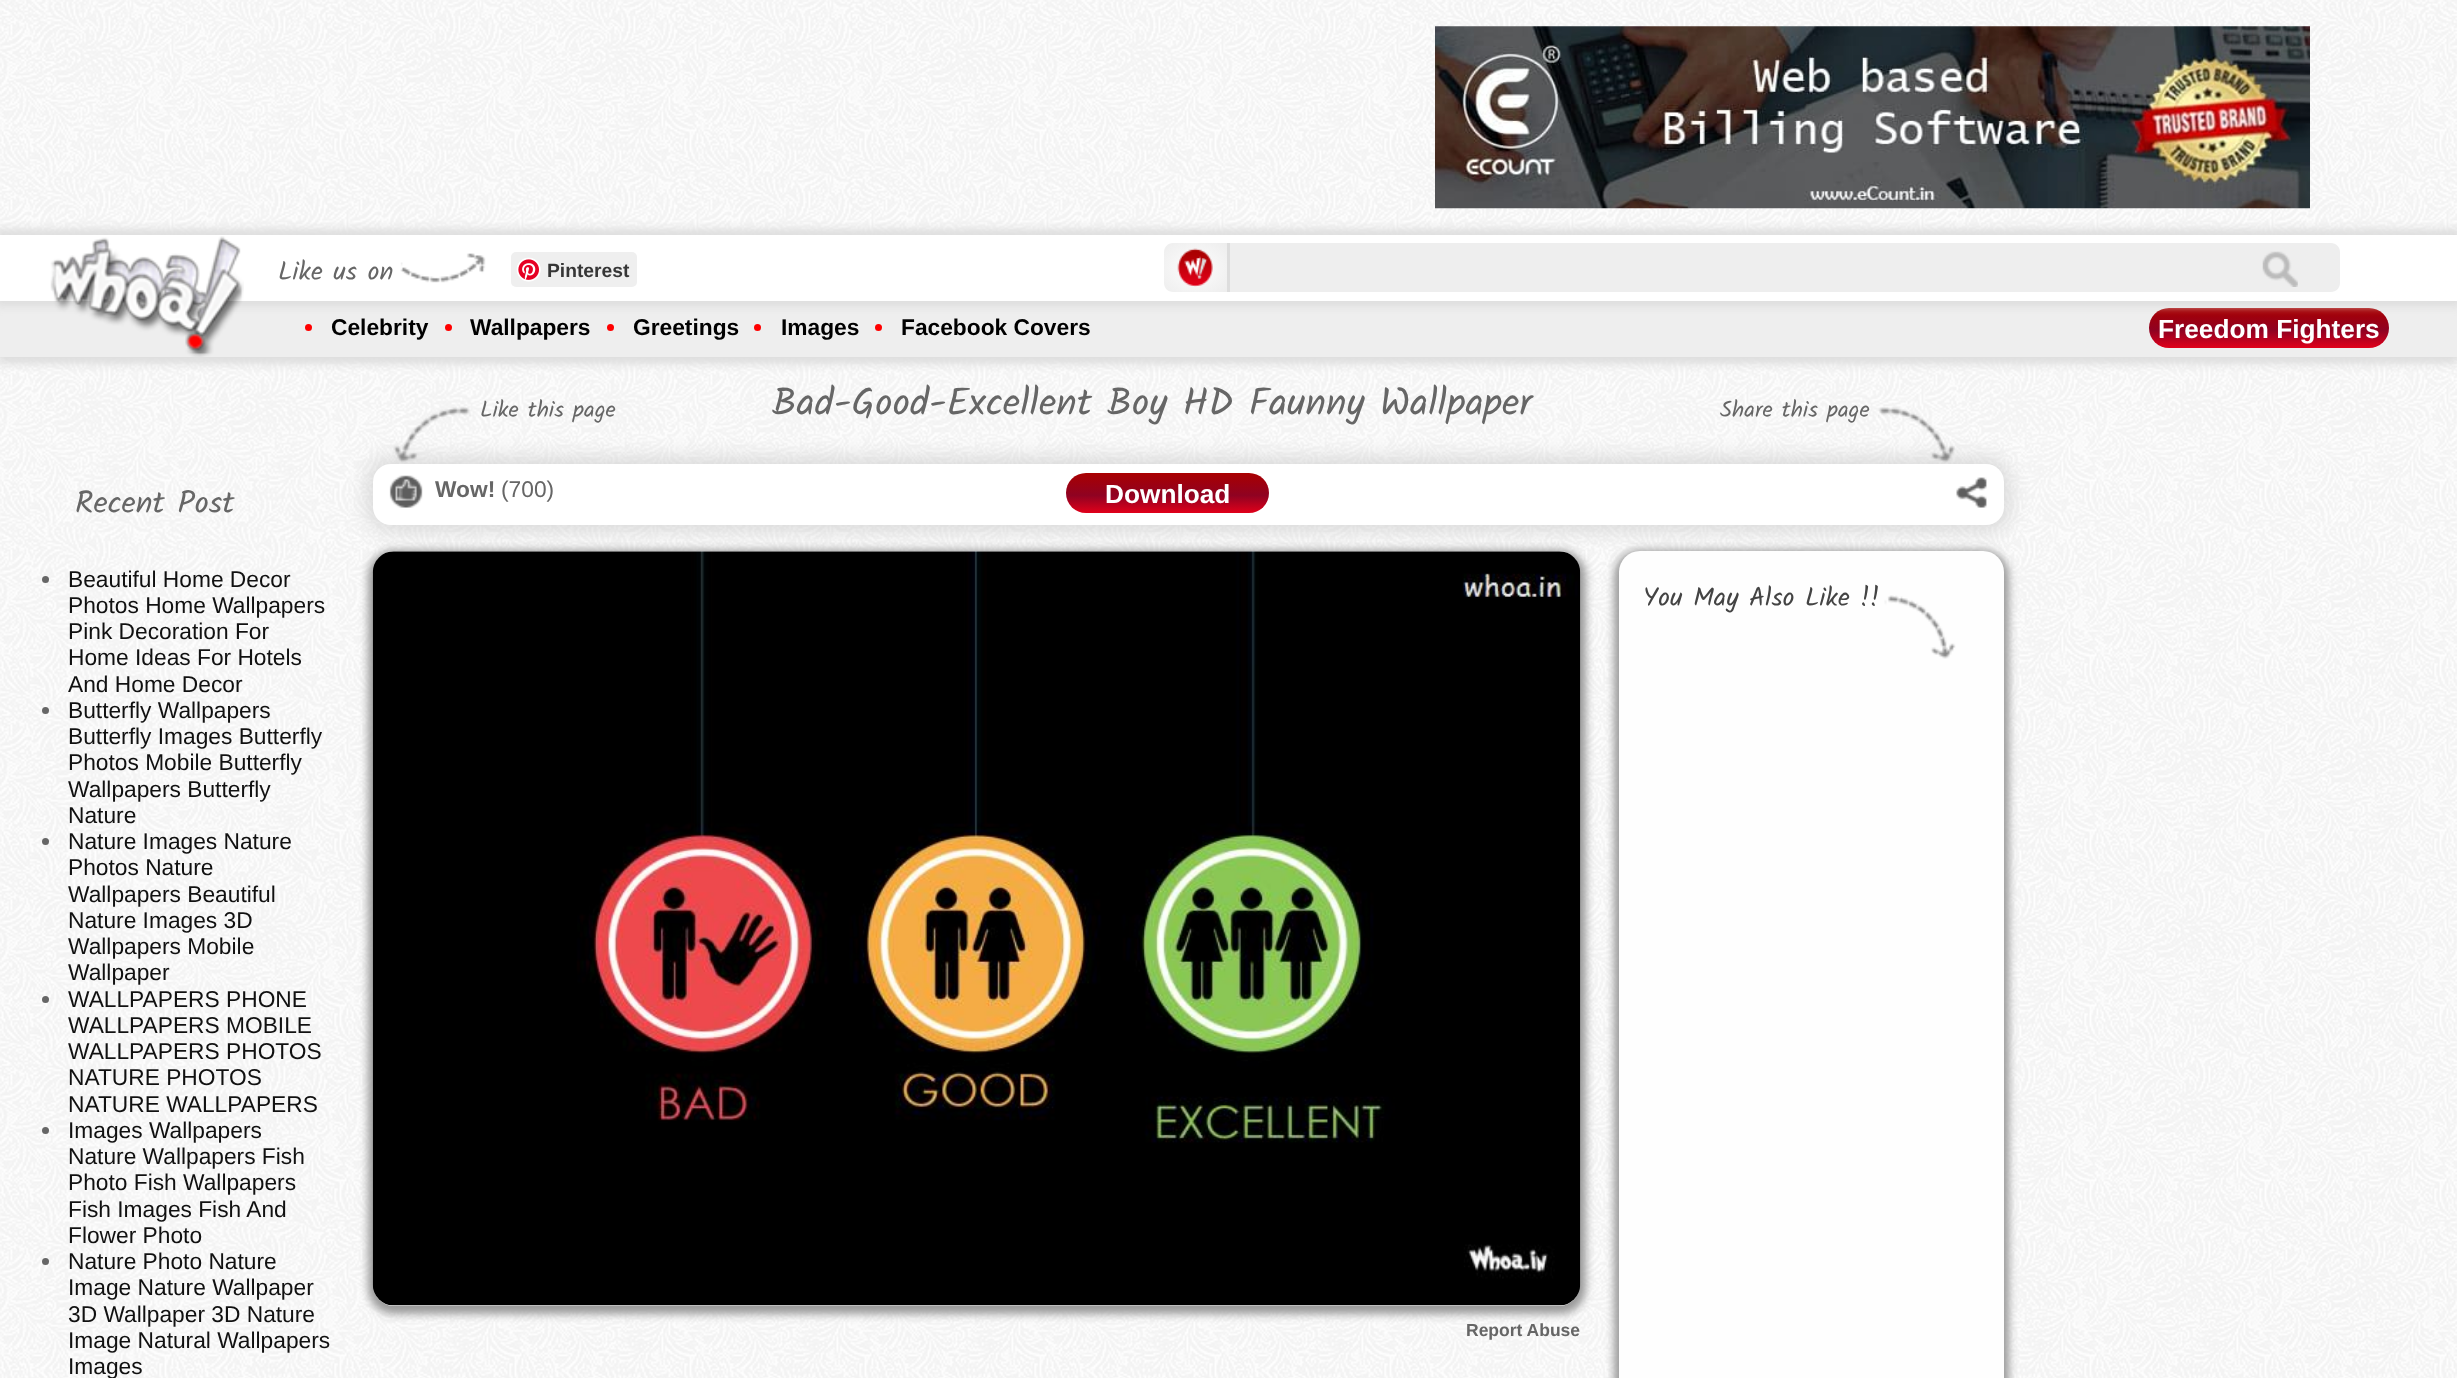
<svg xmlns="http://www.w3.org/2000/svg" width="2457" height="1378">
<defs>
<linearGradient id="g1" gradientUnits="userSpaceOnUse" x1="2269" y1="308" x2="2269" y2="348"><stop offset="0" stop-color="#a90000"/><stop offset="0.11" stop-color="#a40007"/><stop offset="0.56" stop-color="#8f0222"/><stop offset="1" stop-color="#e1001a"/></linearGradient>
<radialGradient id="g2" gradientUnits="userSpaceOnUse" cx="0" cy="0" r="1" gradientTransform="matrix(45 0 0 35 1195 268)"><stop offset="0" stop-color="#fff"/><stop offset="0.47" stop-color="#f6f6f6"/><stop offset="1" stop-color="#ededed"/></radialGradient>
<linearGradient id="g3" gradientUnits="userSpaceOnUse" x1="1167" y1="473" x2="1167" y2="513"><stop offset="0" stop-color="#a90000"/><stop offset="0.11" stop-color="#a40007"/><stop offset="0.56" stop-color="#8f0222"/><stop offset="1" stop-color="#e1001a"/></linearGradient>
</defs>
<rect width="100%" height="100%" fill="#fff"/>
<image x="0" y="0" width="2457" height="1378" href="media/1.png"/>
<image x="1435" y="26" width="875" height="183" href="media/2.png"/>
<rect x="-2" y="294" width="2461" height="70" fill="#ddd" filter="blur(4.5px)"/>
<rect y="301" width="2457" height="56" fill="#eee"/>
<rect x="2149" y="308" width="240" height="40" rx="20" fill="url(#g1)"/>
<rect x="-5" y="229" width="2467" height="77" fill="#ddd" filter="blur(4.5px)"/>
<rect y="235" width="2457" height="66" fill="#fff"/>
<image x="50" y="236" width="194" height="121" href="media/3.png"/>
<image x="400" y="253" width="86" height="30" href="media/4.png"/>
<text x="278" y="280" style="font-family:Kalam;font-size:26.25px;fill:#666">Like us on</text>
<rect x="511" y="252" width="126" height="35" rx="5" fill="#efefef"/>
<image x="516" y="257" width="25" height="25" href="media/5.png"/>
<text x="547" y="277" style="font-family:Liberation Sans;font-size:19.25px;font-weight:bold;fill:#363636">Pinterest</text>
<path d="M1173 243h54v49h-54c-5 0-9-4-9-9v-31c0-5 4-9 9-9z" fill="url(#g2)"/>
<rect x="1227" y="243" width="3" height="49" fill="#ddd"/>
<image x="1177" y="248" width="36" height="39" href="media/6.png"/>
<path d="M1230 243h1101c5 0 9 4 9 9v31c0 5-4 9-9 9h-1101z" fill="#eee"/>
<image x="2262" y="251" width="36" height="36" href="media/7.png"/>
<circle cx="308.5" cy="327.5" r="3.5" fill="#f00"/>
<text x="331" y="335" style="font-family:Liberation Sans;font-size:22.75px;font-weight:bold;fill:#000">Celebrity</text>
<circle cx="448.5" cy="327.5" r="3.5" fill="#f00"/>
<text x="470" y="335" style="font-family:Liberation Sans;font-size:22.75px;font-weight:bold;fill:#000">Wallpapers</text>
<circle cx="610.5" cy="327.5" r="3.5" fill="#f00"/>
<text x="633" y="335" style="font-family:Liberation Sans;font-size:22.75px;font-weight:bold;fill:#000">Greetings</text>
<circle cx="757.5" cy="327.5" r="3.5" fill="#f00"/>
<text x="781" y="335" style="font-family:Liberation Sans;font-size:22.75px;font-weight:bold;fill:#000">Images</text>
<circle cx="878.5" cy="327.5" r="3.5" fill="#f00"/>
<text x="901" y="335" style="font-family:Liberation Sans;font-size:22.75px;font-weight:bold;fill:#000">Facebook Covers</text>
<text x="2158" y="338" style="font-family:Liberation Sans;font-size:26.25px;font-weight:bold;fill:#fff">Freedom Fighters</text>
<text x="75" y="513" style="font-family:Kalam;font-size:31.5px;fill:#666">Recent Post</text>
<circle cx="45.5" cy="579.5" r="3.5" fill="#666"/>
<text x="68" y="587" style="font-family:Liberation Sans;font-size:22.75px;fill:#111">Beautiful Home Decor</text>
<text x="68" y="613" style="font-family:Liberation Sans;font-size:22.75px;fill:#111">Photos Home Wallpapers</text>
<text x="68" y="639" style="font-family:Liberation Sans;font-size:22.75px;fill:#111">Pink Decoration For</text>
<text x="68" y="665" style="font-family:Liberation Sans;font-size:22.75px;fill:#111">Home Ideas For Hotels</text>
<text x="68" y="692" style="font-family:Liberation Sans;font-size:22.75px;fill:#111">And Home Decor</text>
<circle cx="45.5" cy="710.5" r="3.5" fill="#666"/>
<text x="68" y="718" style="font-family:Liberation Sans;font-size:22.75px;fill:#111">Butterfly Wallpapers</text>
<text x="68" y="744" style="font-family:Liberation Sans;font-size:22.75px;fill:#111">Butterfly Images Butterfly</text>
<text x="68" y="770" style="font-family:Liberation Sans;font-size:22.75px;fill:#111">Photos Mobile Butterfly</text>
<text x="68" y="797" style="font-family:Liberation Sans;font-size:22.75px;fill:#111">Wallpapers Butterfly</text>
<text x="68" y="823" style="font-family:Liberation Sans;font-size:22.75px;fill:#111">Nature</text>
<circle cx="45.5" cy="841.5" r="3.5" fill="#666"/>
<text x="68" y="849" style="font-family:Liberation Sans;font-size:22.75px;fill:#111">Nature Images Nature</text>
<text x="68" y="875" style="font-family:Liberation Sans;font-size:22.75px;fill:#111">Photos Nature</text>
<text x="68" y="902" style="font-family:Liberation Sans;font-size:22.75px;fill:#111">Wallpapers Beautiful</text>
<text x="68" y="928" style="font-family:Liberation Sans;font-size:22.75px;fill:#111">Nature Images 3D</text>
<text x="68" y="954" style="font-family:Liberation Sans;font-size:22.75px;fill:#111">Wallpapers Mobile</text>
<text x="68" y="980" style="font-family:Liberation Sans;font-size:22.75px;fill:#111">Wallpaper</text>
<circle cx="45.5" cy="999.5" r="3.5" fill="#666"/>
<text x="68" y="1007" style="font-family:Liberation Sans;font-size:22.75px;fill:#111">WALLPAPERS PHONE</text>
<text x="68" y="1033" style="font-family:Liberation Sans;font-size:22.75px;fill:#111">WALLPAPERS MOBILE</text>
<text x="68" y="1059" style="font-family:Liberation Sans;font-size:22.75px;fill:#111">WALLPAPERS PHOTOS</text>
<text x="68" y="1085" style="font-family:Liberation Sans;font-size:22.75px;fill:#111">NATURE PHOTOS</text>
<text x="68" y="1112" style="font-family:Liberation Sans;font-size:22.75px;fill:#111">NATURE WALLPAPERS</text>
<circle cx="45.5" cy="1130.5" r="3.5" fill="#666"/>
<text x="68" y="1138" style="font-family:Liberation Sans;font-size:22.75px;fill:#111">Images Wallpapers</text>
<text x="68" y="1164" style="font-family:Liberation Sans;font-size:22.75px;fill:#111">Nature Wallpapers Fish</text>
<text x="68" y="1190" style="font-family:Liberation Sans;font-size:22.75px;fill:#111">Photo Fish Wallpapers</text>
<text x="68" y="1217" style="font-family:Liberation Sans;font-size:22.75px;fill:#111">Fish Images Fish And</text>
<text x="68" y="1243" style="font-family:Liberation Sans;font-size:22.75px;fill:#111">Flower Photo</text>
<circle cx="45.5" cy="1261.5" r="3.5" fill="#666"/>
<text x="68" y="1269" style="font-family:Liberation Sans;font-size:22.75px;fill:#111">Nature Photo Nature</text>
<text x="68" y="1295" style="font-family:Liberation Sans;font-size:22.75px;fill:#111">Image Nature Wallpaper</text>
<text x="68" y="1322" style="font-family:Liberation Sans;font-size:22.75px;fill:#111">3D Wallpaper 3D Nature</text>
<text x="68" y="1348" style="font-family:Liberation Sans;font-size:22.75px;fill:#111">Image Natural Wallpapers</text>
<text x="68" y="1374" style="font-family:Liberation Sans;font-size:22.75px;fill:#111">Images</text>
<rect x="366" y="457" width="1645" height="75" rx="25" fill="#c8c8c899" filter="blur(9.5px)"/>
<image x="393" y="407" width="78" height="56" href="media/8.png"/>
<text x="480" y="417" style="font-family:Kalam;font-size:22.75px;fill:#666">Like this page</text>
<text x="772" y="415" style="font-family:Kalam;font-size:38.5px;fill:#666">Bad-Good-Excellent Boy HD Faunny Wallpaper</text>
<image x="1878" y="407" width="77" height="56" href="media/9.png"/>
<text x="1720" y="417" style="font-family:Kalam;font-size:22.75px;fill:#666">Share this page</text>
<rect x="373" y="464" width="1631" height="61" rx="18" fill="#fff"/>
<image x="389" y="475" width="34" height="33" href="media/10.png"/>
<text x="435" y="497" style="font-family:Liberation Sans;font-size:22.75px;font-weight:bold;fill:#666">Wow!</text>
<text x="501" y="497" style="font-family:Liberation Sans;font-size:22.75px;fill:#666">(700)</text>
<rect x="1066" y="473" width="203" height="40" rx="20" fill="url(#g3)"/>
<text x="1105" y="503" style="font-family:Liberation Sans;font-size:26.25px;font-weight:bold;fill:#fff">Download</text>
<image x="1956" y="477" width="31" height="31" href="media/11.png"/>
<rect x="1614" y="550" width="395" height="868" rx="26" fill="#999" filter="blur(4.5px)"/>
<rect x="1619" y="551" width="385" height="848" rx="21" fill="#fefefe"/>
<image x="1884" y="595" width="72" height="64" href="media/12.png"/>
<text x="1643" y="606" style="font-family:Kalam;font-size:26.25px;fill:#444">You May Also Like !!</text>
<rect x="368" y="550" width="1218" height="764" rx="26" fill="#999" filter="blur(4.5px)"/>
<rect x="373" y="551" width="1207" height="755" rx="21" fill="#fefefe"/>
<image x="372" y="551" width="1209" height="755" href="media/13.png"/>
<text x="1466" y="1336" style="font-family:Liberation Sans;font-size:17.5px;font-weight:bold;fill:#666">Report Abuse</text>
</svg>
